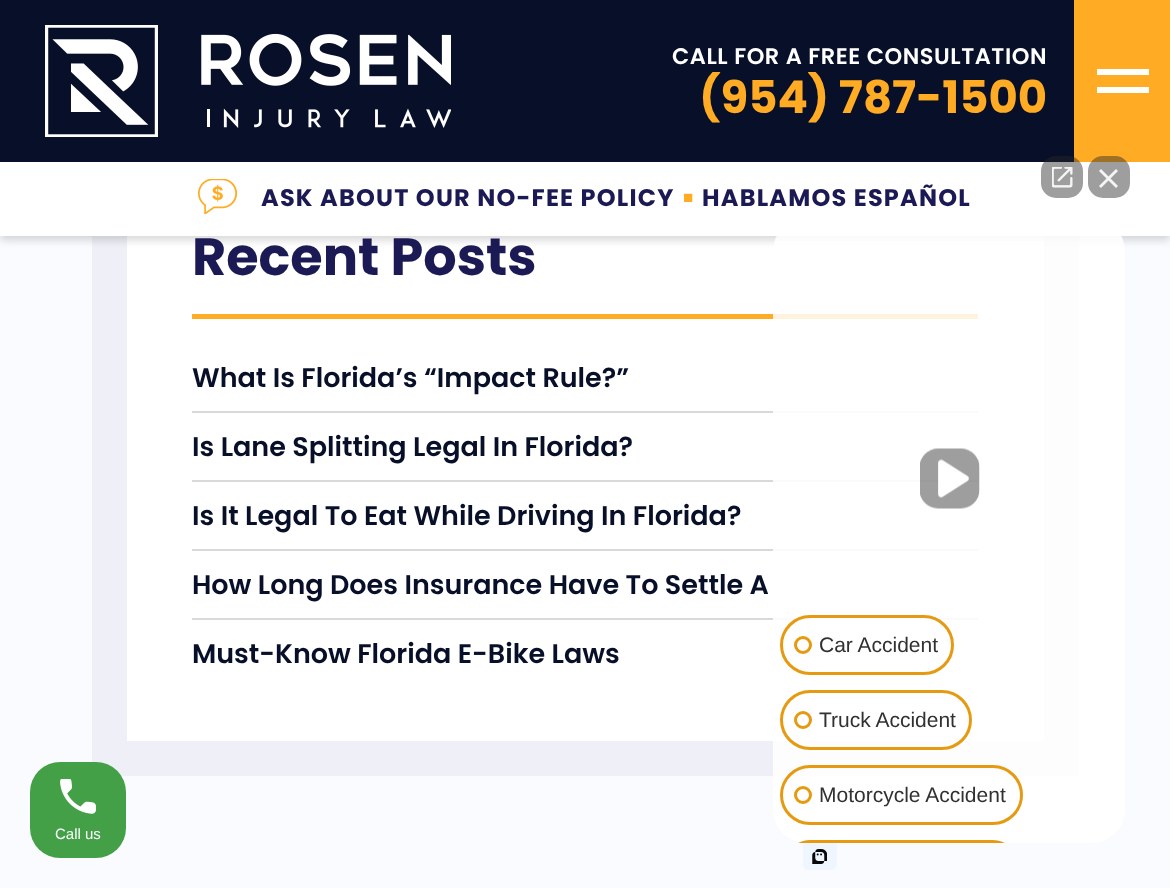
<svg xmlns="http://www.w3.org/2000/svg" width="1170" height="888">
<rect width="100%" height="100%" fill="#fafbff"/>
<rect x="127" y="236" width="917" height="505" fill="#fff"/>
<rect x="109.5" y="149.5" width="952" height="609" fill="none" stroke="#efeff7" stroke-width="35"/>
<rect y="5" width="1170" height="235" fill="#00000029" filter="blur(4.5px)"/>
<rect width="1074" height="162" fill="#080f29"/>
<image x="45" y="25" width="406" height="112" href="media/1.png"/>
<text x="672" y="64" style="font-family:Poppins;font-size:22.5px;font-weight:600;letter-spacing:0.55px;fill:#fff">CALL FOR A FREE CONSULTATION</text>
<text x="699" y="113" style="font-family:Poppins;font-size:45px;font-weight:bold;fill:#ffab24">(954) 787-1500</text>
<rect x="1074" width="96" height="162" fill="#ffab24"/>
<rect x="1097" y="69" width="52" height="6" fill="#fff"/>
<rect x="1097" y="87" width="52" height="6" fill="#fff"/>
<rect y="162" width="1170" height="74" fill="#fff"/>
<image x="198" y="179" width="39" height="35" href="media/2.png"/>
<text x="261" y="206" style="font-family:Poppins;font-size:24px;font-weight:bold;letter-spacing:1.2px;fill:#1b1a55">ASK ABOUT OUR NO-FEE POLICY</text>
<text x="683" y="203" style="font-family:Liberation Sans;font-size:17px;font-weight:bold;letter-spacing:1.2px;fill:#ffab24">■︎</text>
<text x="702" y="206" style="font-family:Poppins;font-size:24px;font-weight:bold;letter-spacing:1.2px;fill:#1b1a55">HABLAMOS ESPAÑOL</text>
<text x="192" y="275" style="font-family:Poppins;font-size:52.5px;font-weight:bold;fill:#1b1a55">Recent Posts</text>
<rect x="192" y="314" width="786" height="5" fill="#ffab24"/>
<text x="192" y="387" style="font-family:Poppins;font-size:27px;font-weight:600;fill:#080f29">What Is Florida’s “Impact Rule?”</text>
<rect x="192" y="411" width="786" height="2" fill="#d9d9d9"/>
<text x="192" y="456" style="font-family:Poppins;font-size:27px;font-weight:600;fill:#080f29">Is Lane Splitting Legal In Florida?</text>
<rect x="192" y="480" width="786" height="2" fill="#d9d9d9"/>
<text x="192" y="525" style="font-family:Poppins;font-size:27px;font-weight:600;fill:#080f29">Is It Legal To Eat While Driving In Florida?</text>
<rect x="192" y="549" width="786" height="2" fill="#d9d9d9"/>
<text x="192" y="594" style="font-family:Poppins;font-size:27px;font-weight:600;fill:#080f29">How Long Does Insurance Have To Settle A</text>
<rect x="192" y="618" width="786" height="2" fill="#d9d9d9"/>
<text x="192" y="663" style="font-family:Poppins;font-size:27px;font-weight:600;fill:#080f29">Must-Know Florida E-Bike Laws</text>
<rect x="773" y="218" width="352" height="625" rx="33" fill="#ffffffd9"/>
<rect x="1041" y="156" width="42" height="42" rx="15" fill="#27272773"/>
<image x="1052" y="167" width="21" height="21" href="media/3.png"/>
<rect x="1088" y="156" width="42" height="42" rx="15" fill="#27272773"/>
<path d="M1099 171l2-2l17 17l-2 2z" fill="#f5f5f5"/>
<path d="M1116 169l2 2l-17 17l-2-2z" fill="#f5f5f5"/>
<image x="920" y="448" width="60" height="61" href="media/4.png"/>
<rect x="781.5" y="616.5" width="171" height="57" rx="28.5" fill="#ffffffd9" stroke="#e59a11" stroke-width="3"/>
<circle cx="803" cy="645" r="7.5" fill="none" stroke="#e59a11" stroke-width="3"/>
<text x="819" y="652" style="font-family:Liberation Sans;font-size:21px;fill:#313131">Car Accident</text>
<rect x="781.5" y="691.5" width="189" height="57" rx="28.5" fill="none" stroke="#e59a11" stroke-width="3"/>
<circle cx="803" cy="720" r="7.5" fill="none" stroke="#e59a11" stroke-width="3"/>
<text x="819" y="727" style="font-family:Liberation Sans;font-size:21px;fill:#313131">Truck Accident</text>
<rect x="781.5" y="766.5" width="240" height="57" rx="28.5" fill="none" stroke="#e59a11" stroke-width="3"/>
<circle cx="803" cy="795" r="7.5" fill="none" stroke="#e59a11" stroke-width="3"/>
<text x="819" y="802" style="font-family:Liberation Sans;font-size:21px;fill:#313131">Motorcycle Accident</text>
<path d="M810 840c-4 0-8 1-12 3h5h202c-4-2-8-3-13-3z" fill="#e59a11"/>
<image x="803" y="843" width="34" height="27" href="media/5.png"/>
<rect x="30" y="762" width="96" height="96" rx="30" fill="#43a047"/>
<image x="60" y="779" width="36" height="35" href="media/6.png"/>
<text x="55" y="839" style="font-family:Liberation Sans;font-size:15px;fill:#fff">Call us</text>
</svg>
